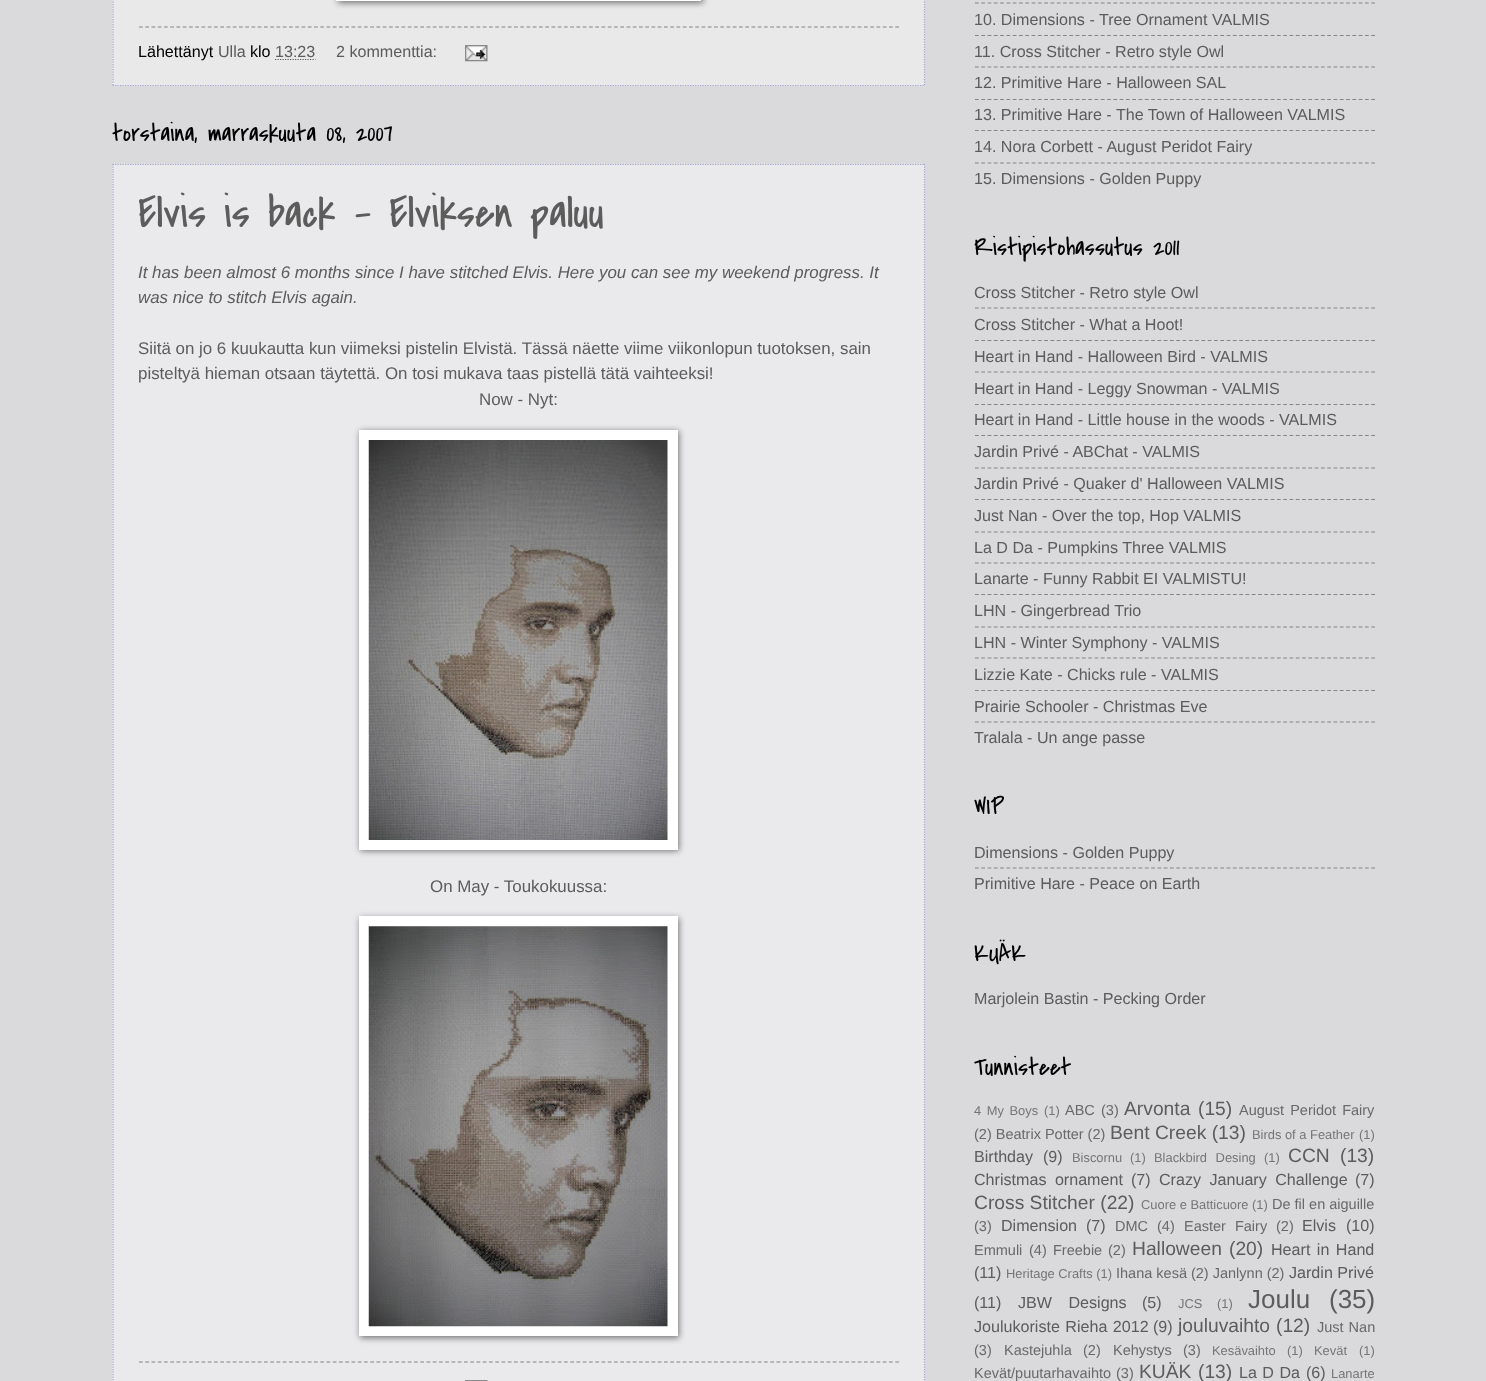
<svg xmlns="http://www.w3.org/2000/svg" width="1486" height="1381">
<rect width="100%" height="100%" fill="#dadadc"/>
<rect x="112" width="813" height="86" fill="#e9e9ea"/>
<path d="M924.5-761v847" fill="none" stroke="#a1a4d0" stroke-width="1.2" stroke-dasharray="1.25 1.25"/>
<path d="M112.5 85.5h812.5" fill="none" stroke="#a1a4d0" stroke-width="1.2" stroke-dasharray="1.25 1.25"/>
<path d="M113-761v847" fill="none" stroke="#a1a4d0" stroke-width="1.2" stroke-dasharray="1.25 1.25"/>
<rect x="338" y="-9" width="365" height="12" fill="#00000080" filter="blur(3px)"/>
<rect x="336" width="365" height="1" fill="#fff"/>
<path d="M139 27h760" fill="none" stroke="#848484" stroke-width="1.2" stroke-dasharray="3.75 2.5"/>
<text x="138" y="57" style="font-family:Liberation Sans;font-size:16.1px;fill:#000">Lähettänyt</text>
<text x="218" y="57" style="font-family:Liberation Sans;font-size:16.1px;fill:#5c5c5c">Ulla</text>
<text x="250" y="57" style="font-family:Liberation Sans;font-size:16.1px;fill:#000">klo</text>
<text x="275" y="57" style="font-family:Liberation Sans;font-size:16.1px;fill:#5c5c5c">13:23</text>
<path d="M275 59.5h40.5" fill="none" stroke="#5c5c5c" stroke-width="1.2" stroke-dasharray="1.25 1.25"/>
<text x="336" y="57" style="font-family:Liberation Sans;font-size:16.1px;fill:#5c5c5c">2 kommenttia:</text>
<image x="465" y="45" width="23" height="17" href="media/1.png"/>
<text x="112" y="141" style="font-family:Covered By Your Grace;font-size:25px;fill:#000">torstaina, marraskuuta 08, 2007</text>
<rect x="112" y="164" width="813" height="1217" fill="#eaeaec"/>
<path d="M112.5 164.5h812.5" fill="none" stroke="#a1a4d0" stroke-width="1.2" stroke-dasharray="1.25 1.25"/>
<path d="M924.5 164v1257" fill="none" stroke="#a1a4d0" stroke-width="1.2" stroke-dasharray="1.25 1.25"/>
<path d="M113 164v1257" fill="none" stroke="#a1a4d0" stroke-width="1.2" stroke-dasharray="1.25 1.25"/>
<text x="138" y="227" style="font-family:Covered By Your Grace;font-size:45px;fill:#5c5c5c">Elvis is back - Elviksen paluu</text>
<text x="138" y="278" style="font-family:Liberation Sans;font-size:16.9px;font-style:italic;fill:#5c5c5c">It has been almost 6 months since I have stitched Elvis. Here you can see my weekend progress. It</text>
<text x="138" y="303" style="font-family:Liberation Sans;font-size:16.9px;font-style:italic;fill:#5c5c5c">was nice to stitch Elvis again.</text>
<text x="138" y="354" style="font-family:Liberation Sans;font-size:16.9px;fill:#5c5c5c">Siitä on jo 6 kuukautta kun viimeksi pistelin Elvistä. Tässä näette viime viikonlopun tuotoksen, sain</text>
<text x="138" y="379" style="font-family:Liberation Sans;font-size:16.9px;fill:#5c5c5c">pisteltyä hieman otsaan täytettä. On tosi mukava taas pistellä tätä vaihteeksi!</text>
<text x="479" y="405" style="font-family:Liberation Sans;font-size:16.9px;fill:#5c5c5c">Now - Nyt:</text>
<rect x="360" y="431" width="319" height="420" fill="#00000080" filter="blur(3px)"/>
<rect x="359" y="430" width="319" height="420" fill="#fff"/>
<image x="368" y="440" width="300" height="400" href="media/2.png"/>
<text x="430" y="892" style="font-family:Liberation Sans;font-size:16.9px;fill:#5c5c5c">On May - Toukokuussa:</text>
<rect x="360" y="918" width="319" height="420" fill="#00000080" filter="blur(3px)"/>
<rect x="359" y="916" width="319" height="420" fill="#fff"/>
<image x="368" y="926" width="300" height="401" href="media/3.png"/>
<path d="M139 1362h760" fill="none" stroke="#848484" stroke-width="1.2" stroke-dasharray="3.75 2.5"/>
<image x="465" y="1380" width="23" height="1" href="media/4.png"/>
<path d="M975 3h400" fill="none" stroke="#848484" stroke-width="1.2" stroke-dasharray="3.75 2.54"/>
<text x="974" y="25" style="font-family:Liberation Sans;font-size:16.1px;fill:#5c5c5c">10. Dimensions - Tree Ornament VALMIS</text>
<path d="M975 35.5h400" fill="none" stroke="#848484" stroke-width="1.2" stroke-dasharray="3.75 2.54"/>
<text x="974" y="57" style="font-family:Liberation Sans;font-size:16.1px;fill:#5c5c5c">11. Cross Stitcher - Retro style Owl</text>
<path d="M975 67h400" fill="none" stroke="#848484" stroke-width="1.2" stroke-dasharray="3.75 2.54"/>
<text x="974" y="88" style="font-family:Liberation Sans;font-size:16.1px;fill:#5c5c5c">12. Primitive Hare - Halloween SAL</text>
<path d="M975 99.5h400" fill="none" stroke="#848484" stroke-width="1.2" stroke-dasharray="3.75 2.54"/>
<text x="974" y="120" style="font-family:Liberation Sans;font-size:16.1px;fill:#5c5c5c">13. Primitive Hare - The Town of Halloween VALMIS</text>
<path d="M975 130.5h400" fill="none" stroke="#848484" stroke-width="1.2" stroke-dasharray="3.75 2.54"/>
<text x="974" y="152" style="font-family:Liberation Sans;font-size:16.1px;fill:#5c5c5c">14. Nora Corbett - August Peridot Fairy</text>
<path d="M975 163h400" fill="none" stroke="#848484" stroke-width="1.2" stroke-dasharray="3.75 2.54"/>
<text x="974" y="184" style="font-family:Liberation Sans;font-size:16.1px;fill:#5c5c5c">15. Dimensions - Golden Puppy</text>
<text x="974" y="255" style="font-family:Covered By Your Grace;font-size:25px;fill:#000">Ristipistohassutus 2011</text>
<text x="974" y="298" style="font-family:Liberation Sans;font-size:16.1px;fill:#5c5c5c">Cross Stitcher - Retro style Owl</text>
<path d="M975 308h400" fill="none" stroke="#848484" stroke-width="1.2" stroke-dasharray="3.75 2.54"/>
<text x="974" y="330" style="font-family:Liberation Sans;font-size:16.1px;fill:#5c5c5c">Cross Stitcher - What a Hoot!</text>
<path d="M975 340.5h400" fill="none" stroke="#848484" stroke-width="1.2" stroke-dasharray="3.75 2.54"/>
<text x="974" y="362" style="font-family:Liberation Sans;font-size:16.1px;fill:#5c5c5c">Heart in Hand - Halloween Bird - VALMIS</text>
<path d="M975 372h400" fill="none" stroke="#848484" stroke-width="1.2" stroke-dasharray="3.75 2.54"/>
<text x="974" y="394" style="font-family:Liberation Sans;font-size:16.1px;fill:#5c5c5c">Heart in Hand - Leggy Snowman - VALMIS</text>
<path d="M975 404.5h400" fill="none" stroke="#848484" stroke-width="1.2" stroke-dasharray="3.75 2.54"/>
<text x="974" y="425" style="font-family:Liberation Sans;font-size:16.1px;fill:#5c5c5c">Heart in Hand - Little house in the woods - VALMIS</text>
<path d="M975 435.5h400" fill="none" stroke="#848484" stroke-width="1.2" stroke-dasharray="3.75 2.54"/>
<text x="974" y="457" style="font-family:Liberation Sans;font-size:16.1px;fill:#5c5c5c">Jardin Privé - ABChat - VALMIS</text>
<path d="M975 468h400" fill="none" stroke="#848484" stroke-width="1.2" stroke-dasharray="3.75 2.54"/>
<text x="974" y="489" style="font-family:Liberation Sans;font-size:16.1px;fill:#5c5c5c">Jardin Privé - Quaker d' Halloween VALMIS</text>
<path d="M975 499.5h400" fill="none" stroke="#848484" stroke-width="1.2" stroke-dasharray="3.75 2.54"/>
<text x="974" y="521" style="font-family:Liberation Sans;font-size:16.1px;fill:#5c5c5c">Just Nan - Over the top, Hop VALMIS</text>
<path d="M975 532h400" fill="none" stroke="#848484" stroke-width="1.2" stroke-dasharray="3.75 2.54"/>
<text x="974" y="553" style="font-family:Liberation Sans;font-size:16.1px;fill:#5c5c5c">La D Da - Pumpkins Three VALMIS</text>
<path d="M975 563h400" fill="none" stroke="#848484" stroke-width="1.2" stroke-dasharray="3.75 2.54"/>
<text x="974" y="584" style="font-family:Liberation Sans;font-size:16.1px;fill:#5c5c5c">Lanarte - Funny Rabbit EI VALMISTU!</text>
<path d="M975 594.5h400" fill="none" stroke="#848484" stroke-width="1.2" stroke-dasharray="3.75 2.54"/>
<text x="974" y="616" style="font-family:Liberation Sans;font-size:16.1px;fill:#5c5c5c">LHN - Gingerbread Trio</text>
<path d="M975 627h400" fill="none" stroke="#848484" stroke-width="1.2" stroke-dasharray="3.75 2.54"/>
<text x="974" y="648" style="font-family:Liberation Sans;font-size:16.1px;fill:#5c5c5c">LHN - Winter Symphony - VALMIS</text>
<path d="M975 658h400" fill="none" stroke="#848484" stroke-width="1.2" stroke-dasharray="3.75 2.54"/>
<text x="974" y="680" style="font-family:Liberation Sans;font-size:16.1px;fill:#5c5c5c">Lizzie Kate - Chicks rule - VALMIS</text>
<path d="M975 690.5h400" fill="none" stroke="#848484" stroke-width="1.2" stroke-dasharray="3.75 2.54"/>
<text x="974" y="712" style="font-family:Liberation Sans;font-size:16.1px;fill:#5c5c5c">Prairie Schooler - Christmas Eve</text>
<path d="M975 722h400" fill="none" stroke="#848484" stroke-width="1.2" stroke-dasharray="3.75 2.54"/>
<text x="974" y="743" style="font-family:Liberation Sans;font-size:16.1px;fill:#5c5c5c">Tralala - Un ange passe</text>
<text x="974" y="814" style="font-family:Covered By Your Grace;font-size:25px;fill:#000">WIP</text>
<text x="974" y="858" style="font-family:Liberation Sans;font-size:16.1px;fill:#5c5c5c">Dimensions - Golden Puppy</text>
<path d="M975 868h400" fill="none" stroke="#848484" stroke-width="1.2" stroke-dasharray="3.75 2.54"/>
<text x="974" y="889" style="font-family:Liberation Sans;font-size:16.1px;fill:#5c5c5c">Primitive Hare - Peace on Earth</text>
<text x="974" y="961" style="font-family:Covered By Your Grace;font-size:25px;fill:#000">KUÄK</text>
<text x="974" y="1004" style="font-family:Liberation Sans;font-size:16.1px;fill:#5c5c5c">Marjolein Bastin - Pecking Order</text>
<text x="974" y="1075" style="font-family:Covered By Your Grace;font-size:25px;fill:#000">Tunnisteet</text>
<text x="974" y="1115" word-spacing="2" style="font-family:Liberation Sans;font-size:12.9px;fill:#757576">4 My Boys</text>
<text x="1044" y="1115" style="font-family:Liberation Sans;font-size:12.9px;fill:#757576">(1)</text>
<text x="1065" y="1115" style="font-family:Liberation Sans;font-size:14.5px;fill:#696969">ABC</text>
<text x="1101" y="1115" style="font-family:Liberation Sans;font-size:14.5px;fill:#696969">(3)</text>
<text x="1124" y="1115" style="font-family:Liberation Sans;font-size:19.25px;fill:#5c5c5c">Arvonta</text>
<text x="1198" y="1115" style="font-family:Liberation Sans;font-size:19.25px;fill:#5c5c5c">(15)</text>
<text x="1239" y="1115" word-spacing="2" style="font-family:Liberation Sans;font-size:14.5px;fill:#696969">August Peridot Fairy</text>
<text x="974" y="1139" style="font-family:Liberation Sans;font-size:14.5px;fill:#696969">(2) Beatrix Potter (2)</text>
<text x="1110" y="1139" style="font-family:Liberation Sans;font-size:19.25px;fill:#5c5c5c">Bent Creek (13)</text>
<text x="1252" y="1139" style="font-family:Liberation Sans;font-size:12.9px;fill:#757576">Birds of a Feather</text>
<text x="1359" y="1139" style="font-family:Liberation Sans;font-size:12.9px;fill:#757576">(1)</text>
<text x="974" y="1162" style="font-family:Liberation Sans;font-size:16.1px;fill:#5c5c5c">Birthday</text>
<text x="1043" y="1162" style="font-family:Liberation Sans;font-size:16.1px;fill:#5c5c5c">(9)</text>
<text x="1072" y="1162" style="font-family:Liberation Sans;font-size:12.9px;fill:#757576">Biscornu</text>
<text x="1130" y="1162" style="font-family:Liberation Sans;font-size:12.9px;fill:#757576">(1)</text>
<text x="1154" y="1162" word-spacing="5" style="font-family:Liberation Sans;font-size:12.9px;fill:#757576">Blackbird Desing</text>
<text x="1264" y="1162" style="font-family:Liberation Sans;font-size:12.9px;fill:#757576">(1)</text>
<text x="1288" y="1162" style="font-family:Liberation Sans;font-size:19.25px;fill:#5c5c5c">CCN</text>
<text x="1340" y="1162" style="font-family:Liberation Sans;font-size:19.25px;fill:#5c5c5c">(13)</text>
<text x="974" y="1185" word-spacing="4" style="font-family:Liberation Sans;font-size:16.1px;fill:#5c5c5c">Christmas ornament</text>
<text x="1131" y="1185" style="font-family:Liberation Sans;font-size:16.1px;fill:#5c5c5c">(7)</text>
<text x="1159" y="1185" word-spacing="4" style="font-family:Liberation Sans;font-size:16.1px;fill:#5c5c5c">Crazy January Challenge</text>
<text x="1355" y="1185" style="font-family:Liberation Sans;font-size:16.1px;fill:#5c5c5c">(7)</text>
<text x="974" y="1209" style="font-family:Liberation Sans;font-size:19.25px;fill:#5c5c5c">Cross Stitcher (22)</text>
<text x="1141" y="1209" style="font-family:Liberation Sans;font-size:12.9px;fill:#757576">Cuore e Batticuore</text>
<text x="1252" y="1209" style="font-family:Liberation Sans;font-size:12.9px;fill:#757576">(1)</text>
<text x="1272" y="1209" style="font-family:Liberation Sans;font-size:14.5px;fill:#696969">De fil en aiguille</text>
<text x="974" y="1231" style="font-family:Liberation Sans;font-size:14.5px;fill:#696969">(3)</text>
<text x="1001" y="1231" style="font-family:Liberation Sans;font-size:16.1px;fill:#5c5c5c">Dimension</text>
<text x="1086" y="1231" style="font-family:Liberation Sans;font-size:16.1px;fill:#5c5c5c">(7)</text>
<text x="1115" y="1231" style="font-family:Liberation Sans;font-size:14.5px;fill:#696969">DMC</text>
<text x="1157" y="1231" style="font-family:Liberation Sans;font-size:14.5px;fill:#696969">(4)</text>
<text x="1184" y="1231" word-spacing="5" style="font-family:Liberation Sans;font-size:14.5px;fill:#696969">Easter Fairy</text>
<text x="1276" y="1231" style="font-family:Liberation Sans;font-size:14.5px;fill:#696969">(2)</text>
<text x="1302" y="1231" style="font-family:Liberation Sans;font-size:16.1px;fill:#5c5c5c">Elvis</text>
<text x="1346" y="1231" style="font-family:Liberation Sans;font-size:16.1px;fill:#5c5c5c">(10)</text>
<text x="974" y="1255" style="font-family:Liberation Sans;font-size:14.5px;fill:#696969">Emmuli</text>
<text x="1029" y="1255" style="font-family:Liberation Sans;font-size:14.5px;fill:#696969">(4)</text>
<text x="1053" y="1255" style="font-family:Liberation Sans;font-size:14.5px;fill:#696969">Freebie</text>
<text x="1108" y="1255" style="font-family:Liberation Sans;font-size:14.5px;fill:#696969">(2)</text>
<text x="1132" y="1255" style="font-family:Liberation Sans;font-size:19.25px;fill:#5c5c5c">Halloween</text>
<text x="1229" y="1255" style="font-family:Liberation Sans;font-size:19.25px;fill:#5c5c5c">(20)</text>
<text x="1271" y="1255" word-spacing="2" style="font-family:Liberation Sans;font-size:16.1px;fill:#5c5c5c">Heart in Hand</text>
<text x="974" y="1278" style="font-family:Liberation Sans;font-size:16.1px;fill:#5c5c5c">(11)</text>
<text x="1006" y="1278" style="font-family:Liberation Sans;font-size:12.9px;fill:#757576">Heritage Crafts (1)</text>
<text x="1116" y="1278" style="font-family:Liberation Sans;font-size:14.5px;fill:#696969">Ihana kesä (2) Janlynn (2)</text>
<text x="1289" y="1278" style="font-family:Liberation Sans;font-size:16.1px;fill:#5c5c5c">Jardin Privé</text>
<text x="974" y="1308" style="font-family:Liberation Sans;font-size:16.1px;fill:#5c5c5c">(11)</text>
<text x="1018" y="1308" word-spacing="12" style="font-family:Liberation Sans;font-size:16.1px;fill:#5c5c5c">JBW Designs</text>
<text x="1142" y="1308" style="font-family:Liberation Sans;font-size:16.1px;fill:#5c5c5c">(5)</text>
<text x="1178" y="1308" style="font-family:Liberation Sans;font-size:12.9px;fill:#757576">JCS</text>
<text x="1217" y="1308" style="font-family:Liberation Sans;font-size:12.9px;fill:#757576">(1)</text>
<text x="1248" y="1308" style="font-family:Liberation Sans;font-size:26px;fill:#5c5c5c">Joulu</text>
<text x="1329" y="1308" style="font-family:Liberation Sans;font-size:26px;fill:#5c5c5c">(35)</text>
<text x="974" y="1332" word-spacing="1" style="font-family:Liberation Sans;font-size:16.1px;fill:#5c5c5c">Joulukoriste Rieha 2012</text>
<text x="1153" y="1332" style="font-family:Liberation Sans;font-size:16.1px;fill:#5c5c5c">(9)</text>
<text x="1178" y="1332" style="font-family:Liberation Sans;font-size:19.25px;fill:#5c5c5c">jouluvaihto</text>
<text x="1276" y="1332" style="font-family:Liberation Sans;font-size:19.25px;fill:#5c5c5c">(12)</text>
<text x="1317" y="1332" word-spacing="1" style="font-family:Liberation Sans;font-size:14.5px;fill:#696969">Just Nan</text>
<text x="974" y="1355" style="font-family:Liberation Sans;font-size:14.5px;fill:#696969">(3)</text>
<text x="1004" y="1355" style="font-family:Liberation Sans;font-size:14.5px;fill:#696969">Kastejuhla</text>
<text x="1083" y="1355" style="font-family:Liberation Sans;font-size:14.5px;fill:#696969">(2)</text>
<text x="1113" y="1355" style="font-family:Liberation Sans;font-size:14.5px;fill:#696969">Kehystys</text>
<text x="1183" y="1355" style="font-family:Liberation Sans;font-size:14.5px;fill:#696969">(3)</text>
<text x="1212" y="1355" style="font-family:Liberation Sans;font-size:12.9px;fill:#757576">Kesävaihto</text>
<text x="1287" y="1355" style="font-family:Liberation Sans;font-size:12.9px;fill:#757576">(1)</text>
<text x="1314" y="1355" style="font-family:Liberation Sans;font-size:12.9px;fill:#757576">Kevät</text>
<text x="1359" y="1355" style="font-family:Liberation Sans;font-size:12.9px;fill:#757576">(1)</text>
<text x="974" y="1378" style="font-family:Liberation Sans;font-size:14.5px;fill:#696969">Kevät/puutarhavaihto</text>
<text x="1116" y="1378" style="font-family:Liberation Sans;font-size:14.5px;fill:#696969">(3)</text>
<text x="1139" y="1378" style="font-family:Liberation Sans;font-size:19.25px;fill:#5c5c5c">KUÄK</text>
<text x="1198" y="1378" style="font-family:Liberation Sans;font-size:19.25px;fill:#5c5c5c">(13)</text>
<text x="1239" y="1378" word-spacing="1" style="font-family:Liberation Sans;font-size:16.1px;fill:#5c5c5c">La D Da</text>
<text x="1306" y="1378" style="font-family:Liberation Sans;font-size:16.1px;fill:#5c5c5c">(6)</text>
<text x="1331" y="1378" style="font-family:Liberation Sans;font-size:12.9px;fill:#757576">Lanarte</text>
</svg>
